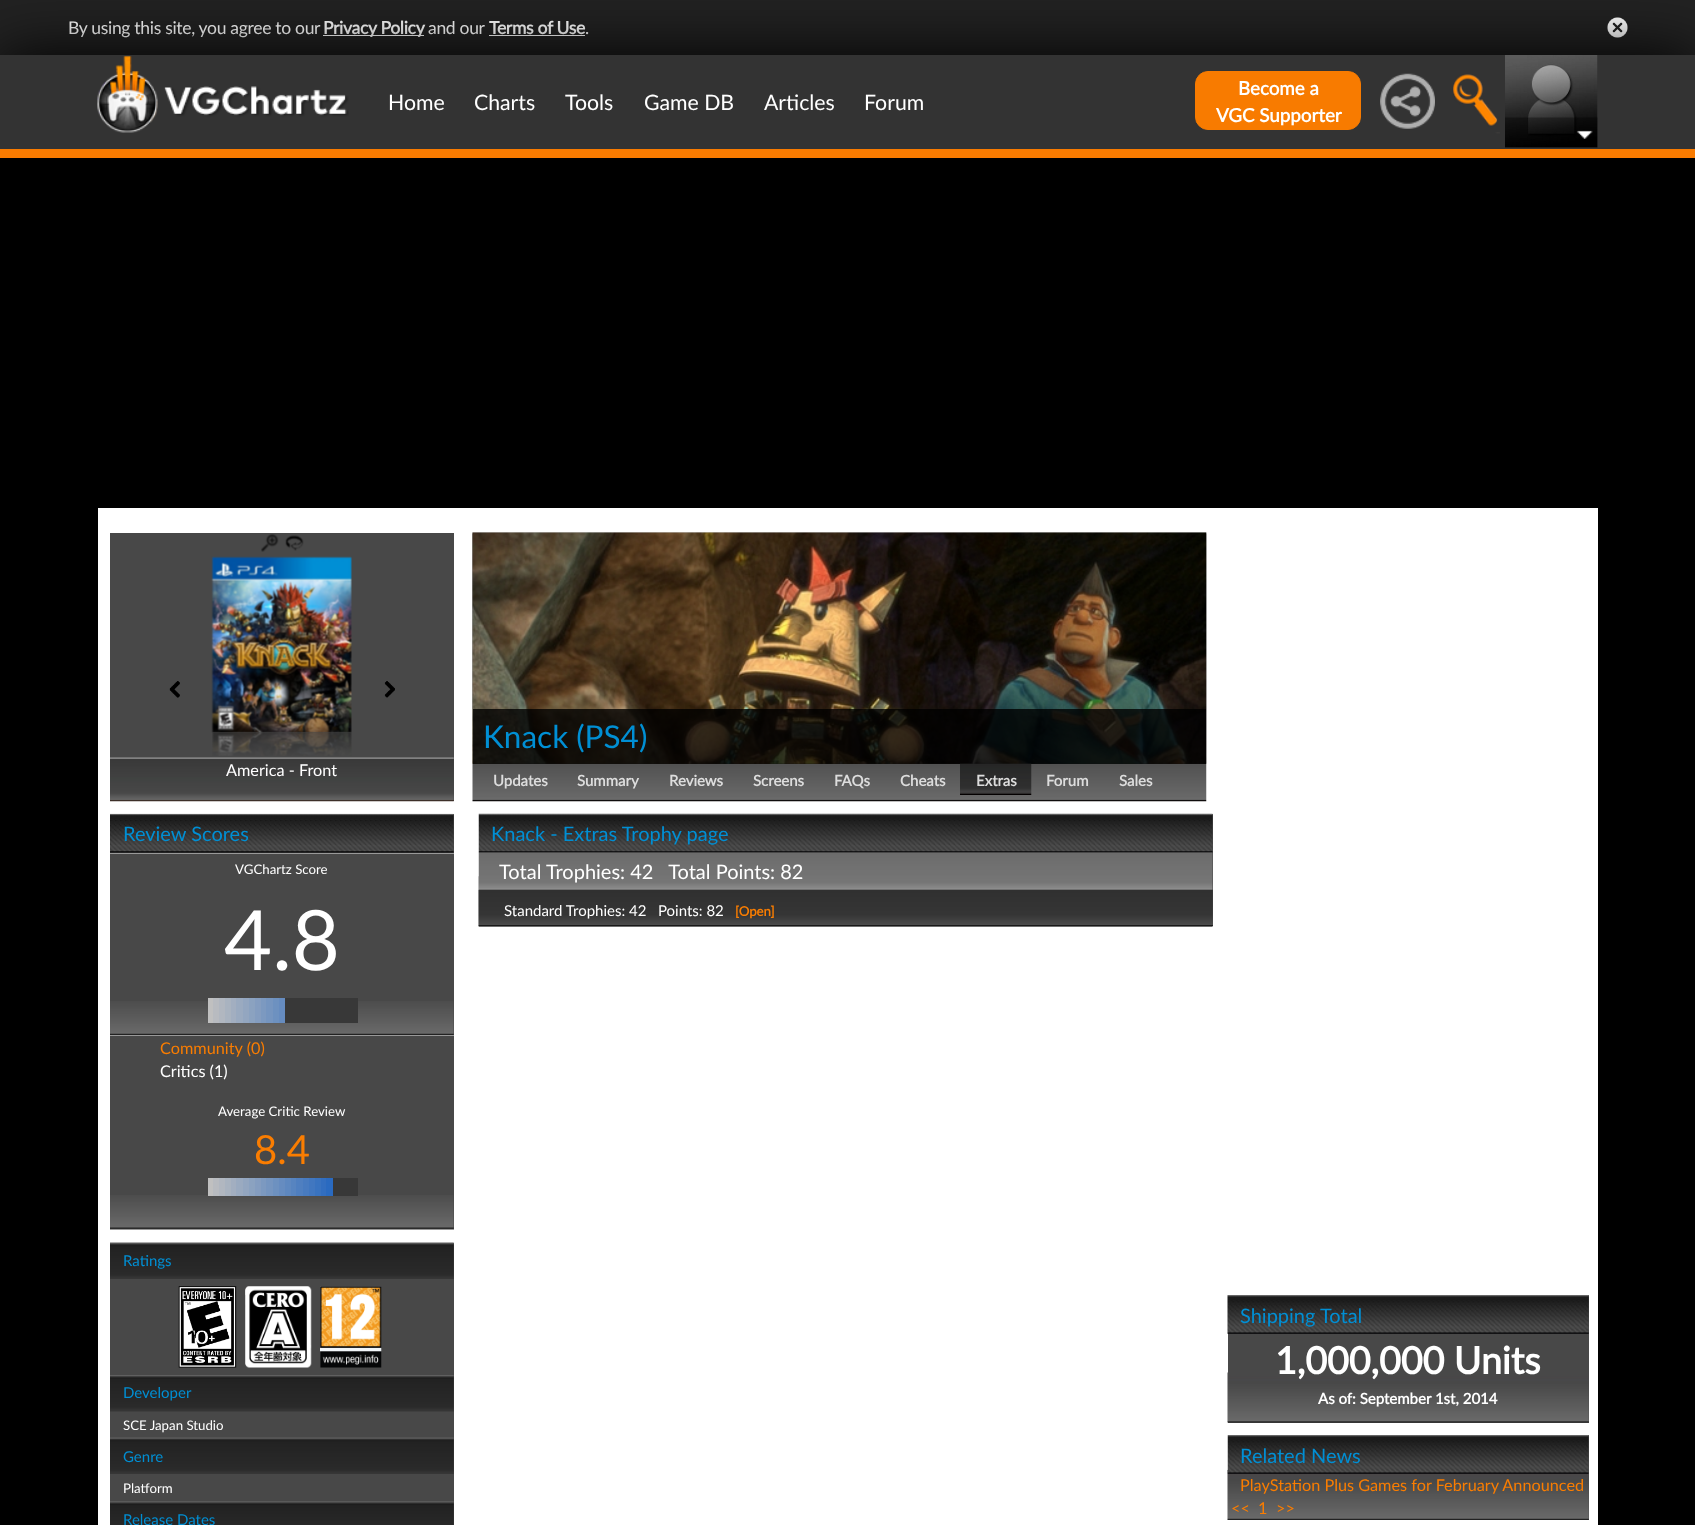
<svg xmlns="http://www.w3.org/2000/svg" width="1695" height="1525">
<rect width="100%" height="100%" fill="#000"/>
<rect width="1695" height="55" fill="#222"/>
<text x="68" y="34" style="font-family:Lato;font-size:17.5px;letter-spacing:-0.3px;fill:#fff">By using this site, you agree to our</text>
<rect x="323" y="35" width="101" height="1" fill="#fff"/>
<text x="323" y="34" style="font-family:Lato;font-size:17.5px;font-weight:bold;letter-spacing:-0.3px;fill:#fff">Privacy Policy</text>
<text x="428" y="34" style="font-family:Lato;font-size:17.5px;letter-spacing:-0.3px;fill:#fff">and our</text>
<text x="489" y="34" style="font-family:Lato;font-size:17.5px;font-weight:bold;letter-spacing:-0.3px;fill:#fff">Terms of Use</text>
<text x="585" y="34" style="font-family:Lato;font-size:17.5px;letter-spacing:-0.3px;fill:#fff">.</text>
<rect x="489" y="35" width="96" height="1" fill="#fff"/>
<image x="1607" y="17" width="21" height="21" href="media/1.png"/>
<rect y="56" width="1695" height="103" fill="#000" filter="blur(31px)"/>
<rect y="55" width="1695" height="94" fill="#333"/>
<image x="97" y="56" width="252" height="77" href="media/2.png"/>
<text x="388" y="110" style="font-family:Lato;font-size:21.25px;fill:#fff">Home</text>
<text x="474" y="110" style="font-family:Lato;font-size:21.25px;fill:#fff">Charts</text>
<text x="565" y="110" style="font-family:Lato;font-size:21.25px;fill:#fff">Tools</text>
<text x="644" y="110" style="font-family:Lato;font-size:21.25px;fill:#fff">Game DB</text>
<text x="764" y="110" style="font-family:Lato;font-size:21.25px;fill:#fff">Articles</text>
<text x="864" y="110" style="font-family:Lato;font-size:21.25px;fill:#fff">Forum</text>
<rect x="1195.5" y="71.5" width="165" height="58" rx="12.5" fill="#f87b00" stroke="#f87b00"/>
<text x="1238" y="95" style="font-family:Lato;font-size:18.75px;font-weight:bold;fill:#fff">Become a</text>
<text x="1216" y="122" style="font-family:Lato;font-size:18.75px;font-weight:bold;fill:#fff">VGC Supporter</text>
<image x="1380" y="73" width="55" height="56" href="media/3.png"/>
<image x="1453" y="74" width="47" height="60" href="media/4.png"/>
<image x="1505" y="55" width="93" height="93" href="media/5.png"/>
<image x="1505" y="117" width="93" height="31" href="media/6.png"/>
<rect y="149" width="1695" height="9" fill="#f97b00"/>
<rect x="98" y="508" width="1500" height="1017" fill="#fff"/>
<rect x="110" y="533" width="344" height="268" fill="#484848"/>
<image x="110" y="757" width="344" height="45" href="media/7.png"/>
<image x="169" y="681" width="11" height="17" href="media/8.png"/>
<image x="384" y="681" width="11" height="17" href="media/9.png"/>
<image x="261" y="534" width="18" height="18" href="media/10.png"/>
<image x="285" y="535" width="19" height="16" href="media/11.png"/>
<image x="211" y="556" width="141" height="177" href="media/12.png"/>
<image x="212" y="732" width="140" height="24" href="media/13.png"/>
<text x="226" y="776" style="font-family:Lato;font-size:16.25px;fill:#fff">America - Front</text>
<rect x="110" y="814" width="344" height="415" fill="#484848"/>
<image x="110" y="813" width="344" height="40" href="media/14.png"/>
<rect x="110" y="853" width="344" height="1" fill="#999"/>
<text x="123" y="841" style="font-family:Lato;font-size:20px;fill:#008fd4">Review Scores</text>
<image x="110" y="1001" width="344" height="34" href="media/15.png"/>
<rect x="110" y="1035" width="344" height="1" fill="#999"/>
<text x="235" y="874" style="font-family:Lato;font-size:13.25px;fill:#fff">VGChartz Score</text>
<text x="224" y="970" style="font-family:Lato;font-size:83px;fill:#fff">4.8</text>
<rect x="208" y="998" width="5" height="25" fill="#c0c0c0"/>
<rect x="213" y="998" width="6" height="25" fill="#b8bbc0"/>
<rect x="219" y="998" width="6" height="25" fill="#b1b7c0"/>
<rect x="225" y="998" width="6" height="25" fill="#a9b3c0"/>
<rect x="231" y="998" width="5" height="25" fill="#a2aec0"/>
<rect x="236" y="998" width="7" height="25" fill="#9aaac0"/>
<rect x="243" y="998" width="6" height="25" fill="#93a6c0"/>
<rect x="249" y="998" width="6" height="25" fill="#8ba2c0"/>
<rect x="255" y="998" width="6" height="25" fill="#849dc0"/>
<rect x="261" y="998" width="5" height="25" fill="#7c99c0"/>
<rect x="266" y="998" width="7" height="25" fill="#7595c0"/>
<rect x="273" y="998" width="6" height="25" fill="#6d91c0"/>
<rect x="279" y="998" width="6" height="25" fill="#668cc0"/>
<rect x="285" y="998" width="73" height="25" fill="#383838"/>
<text x="160" y="1054" style="font-family:Lato;font-size:16.25px;fill:#fa7d01">Community (0)</text>
<text x="160" y="1077" style="font-family:Lato;font-size:16.25px;fill:#fff">Critics (1)</text>
<image x="110" y="1195" width="344" height="34" href="media/16.png"/>
<rect x="110" y="1229" width="344" height="1" fill="#999"/>
<text x="218" y="1116" style="font-family:Lato;font-size:13.25px;fill:#fff">Average Critic Review</text>
<text x="254" y="1164" style="font-family:Lato;font-size:40px;fill:#fa7d01">8.4</text>
<rect x="208" y="1178" width="5" height="18" fill="#c0c0c0"/>
<rect x="213" y="1178" width="6" height="18" fill="#b8bbc0"/>
<rect x="219" y="1178" width="6" height="18" fill="#b1b7c0"/>
<rect x="225" y="1178" width="6" height="18" fill="#a9b3c0"/>
<rect x="231" y="1178" width="5" height="18" fill="#a2aec0"/>
<rect x="236" y="1178" width="7" height="18" fill="#9aaac0"/>
<rect x="243" y="1178" width="6" height="18" fill="#93a6c0"/>
<rect x="249" y="1178" width="6" height="18" fill="#8ba2c0"/>
<rect x="255" y="1178" width="6" height="18" fill="#849dc0"/>
<rect x="261" y="1178" width="5" height="18" fill="#7c99c0"/>
<rect x="266" y="1178" width="7" height="18" fill="#7595c0"/>
<rect x="273" y="1178" width="6" height="18" fill="#6d91c0"/>
<rect x="279" y="1178" width="6" height="18" fill="#668cc0"/>
<rect x="285" y="1178" width="6" height="18" fill="#5e88c0"/>
<rect x="291" y="1178" width="5" height="18" fill="#5784c0"/>
<rect x="296" y="1178" width="7" height="18" fill="#4f7fc0"/>
<rect x="303" y="1178" width="6" height="18" fill="#487bc0"/>
<rect x="309" y="1178" width="6" height="18" fill="#4177c0"/>
<rect x="315" y="1178" width="6" height="18" fill="#3973c0"/>
<rect x="321" y="1178" width="5" height="18" fill="#326ec0"/>
<rect x="326" y="1178" width="7" height="18" fill="#2a6ac0"/>
<rect x="333" y="1178" width="25" height="18" fill="#383838"/>
<rect x="110" y="1243" width="344" height="282" fill="#484848"/>
<image x="110" y="1242" width="344" height="37" href="media/17.png"/>
<text x="123" y="1266" style="font-family:Lato;font-size:15px;fill:#008fd4">Ratings</text>
<image x="178" y="1286" width="59" height="82" href="media/18.png"/>
<image x="245" y="1286" width="67" height="82" href="media/19.png"/>
<image x="320" y="1286" width="62" height="82" href="media/20.png"/>
<image x="110" y="1375" width="344" height="37" href="media/21.png"/>
<text x="123" y="1398" style="font-family:Lato;font-size:15px;fill:#008fd4">Developer</text>
<text x="123" y="1430" style="font-family:Lato;font-size:13.25px;fill:#fff">SCE Japan Studio</text>
<image x="110" y="1437" width="344" height="37" href="media/22.png"/>
<text x="123" y="1462" style="font-family:Lato;font-size:15px;fill:#008fd4">Genre</text>
<text x="123" y="1493" style="font-family:Lato;font-size:13.25px;fill:#fff">Platform</text>
<image x="110" y="1501" width="344" height="24" href="media/23.png"/>
<text x="123" y="1525" style="font-family:Lato;font-size:15px;fill:#008fd4">Release Dates</text>
<image x="472" y="532" width="735" height="270" href="media/24.png"/>
<image x="472" y="532" width="735" height="232" href="media/25.png"/>
<rect x="473" y="709" width="733" height="55" fill="#000000cc"/>
<text x="483" y="748" style="font-family:Lato;font-size:31.5px;fill:#008fd4">Knack (PS4)</text>
<text x="493" y="786" style="font-family:Lato;font-size:15px;font-weight:bold;fill:#ddd">Updates</text>
<text x="577" y="786" style="font-family:Lato;font-size:15px;font-weight:bold;fill:#ddd">Summary</text>
<text x="669" y="786" style="font-family:Lato;font-size:15px;font-weight:bold;fill:#ddd">Reviews</text>
<text x="753" y="786" style="font-family:Lato;font-size:15px;font-weight:bold;fill:#ddd">Screens</text>
<text x="834" y="786" style="font-family:Lato;font-size:15px;font-weight:bold;fill:#ddd">FAQs</text>
<text x="900" y="786" style="font-family:Lato;font-size:15px;font-weight:bold;fill:#ddd">Cheats</text>
<image x="960" y="763" width="72" height="32" href="media/26.png"/>
<text x="976" y="786" style="font-family:Lato;font-size:15px;font-weight:bold;fill:#ddd">Extras</text>
<text x="1046" y="786" style="font-family:Lato;font-size:15px;font-weight:bold;fill:#ddd">Forum</text>
<text x="1119" y="786" style="font-family:Lato;font-size:15px;font-weight:bold;fill:#ddd">Sales</text>
<rect x="479" y="814" width="734" height="112" fill="#484848"/>
<image x="478" y="876" width="735" height="51" href="media/27.png"/>
<image x="478" y="813" width="735" height="40" href="media/28.png"/>
<text x="491" y="841" style="font-family:Lato;font-size:20px;fill:#008fd4">Knack - Extras Trophy page</text>
<image x="478" y="852" width="735" height="38" href="media/29.png"/>
<text x="499" y="879" style="font-family:Lato;font-size:20px;fill:#fff" xml:space="preserve">Total Trophies: 42   Total Points: 82</text>
<image x="478" y="890" width="735" height="37" href="media/30.png"/>
<image x="478" y="890" width="735" height="37" href="media/31.png"/>
<text x="504" y="916" style="font-family:Lato;font-size:15px;fill:#fff" xml:space="preserve">Standard Trophies: 42   Points: 82</text>
<text x="735" y="916" style="font-family:Lato;font-size:13.25px;font-weight:bold;fill:#fa7d01">[Open]</text>
<rect x="1228" y="1295" width="361" height="128" fill="#484848"/>
<image x="1227" y="1372" width="362" height="51" href="media/32.png"/>
<image x="1227" y="1295" width="362" height="39" href="media/33.png"/>
<text x="1240" y="1323" style="font-family:Lato;font-size:20px;fill:#008fd4">Shipping Total</text>
<text x="1275" y="1374" style="font-family:Lato;font-size:37.5px;font-weight:bold;fill:#fff">1,000,000 Units</text>
<text x="1318" y="1404" style="font-family:Lato;font-size:15px;font-weight:bold;fill:#fff">As of: September 1st, 2014</text>
<rect x="1588" y="1435" width="1" height="85" fill="#484848"/>
<image x="1227" y="1470" width="362" height="50" href="media/34.png"/>
<image x="1227" y="1435" width="362" height="39" href="media/35.png"/>
<text x="1240" y="1463" style="font-family:Lato;font-size:20px;fill:#008fd4">Related News</text>
<text x="1240" y="1491" style="font-family:Lato;font-size:16.25px;fill:#fa7d01">PlayStation Plus Games for February Announced</text>
<text x="1231" y="1514" style="font-family:Lato;font-size:16.25px;fill:#fa7d01">&lt;&lt;</text>
<text x="1258" y="1514" style="font-family:Lato;font-size:16.25px;fill:#fa7d01">1</text>
<text x="1276" y="1514" style="font-family:Lato;font-size:16.25px;fill:#fa7d01">&gt;&gt;</text>
</svg>
